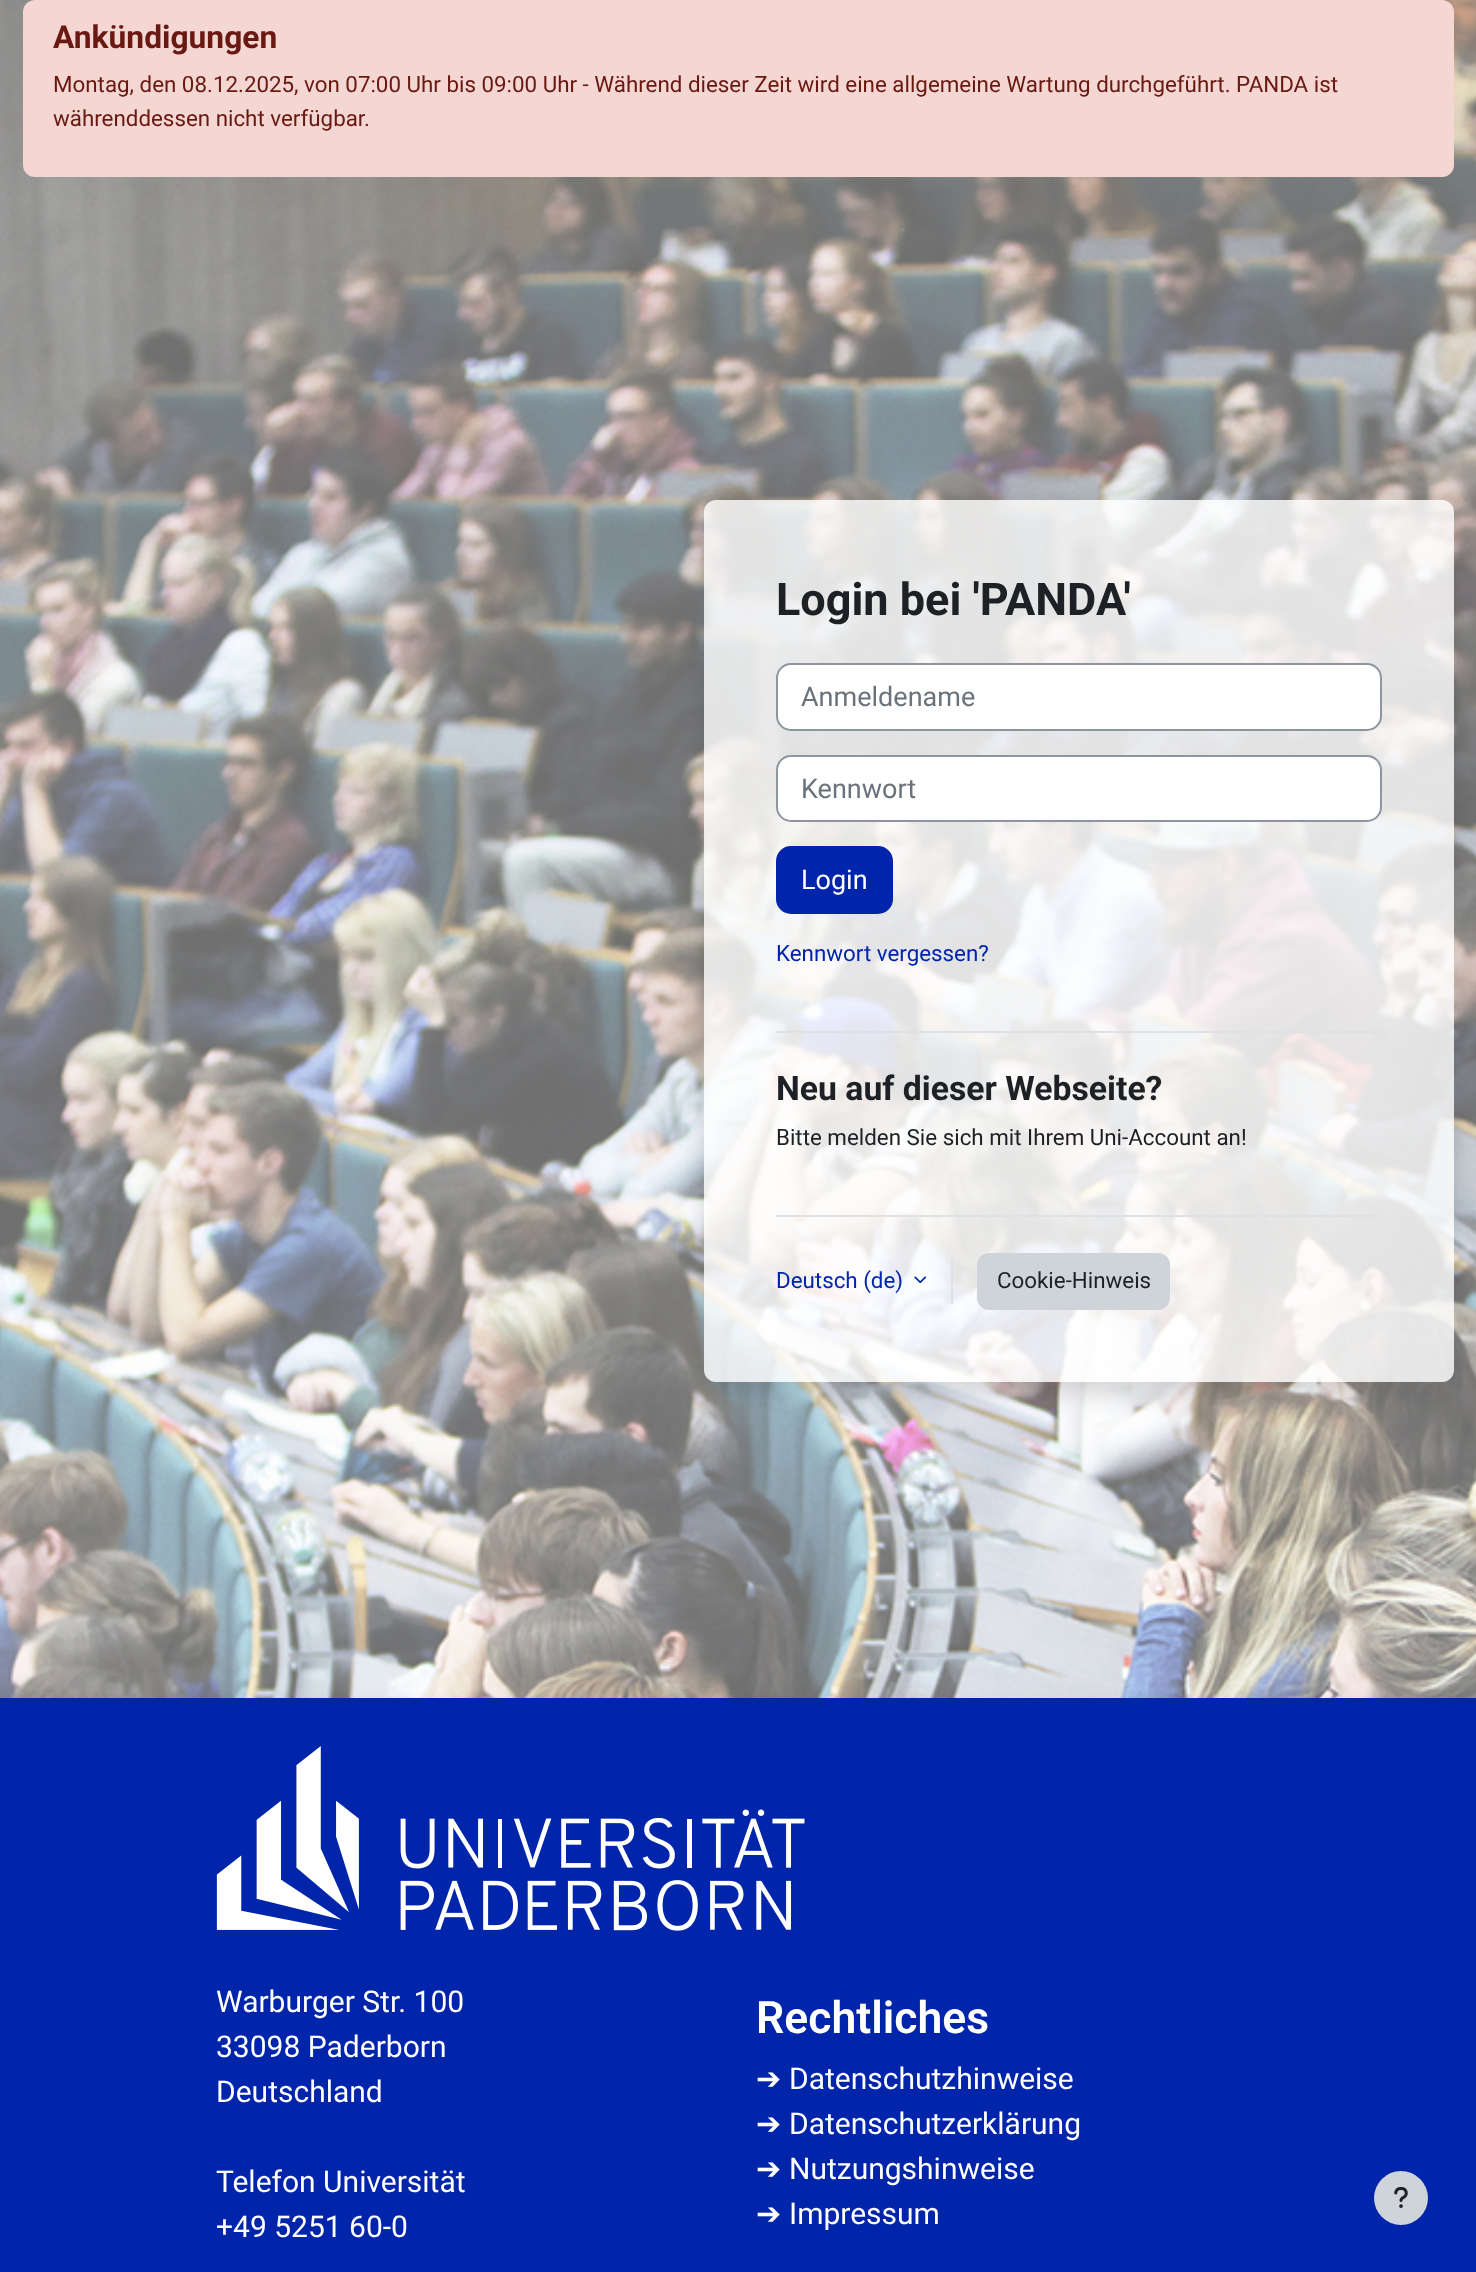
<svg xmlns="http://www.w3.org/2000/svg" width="1476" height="2272">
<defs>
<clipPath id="clip1"><path d="M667 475h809v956h-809zm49 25h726c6.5 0 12 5.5 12 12v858c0 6.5-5.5 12-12 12h-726c-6.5 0-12-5.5-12-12v-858c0-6.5 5.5-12 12-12z" clip-rule="evenodd"/></clipPath>
</defs>
<rect width="100%" height="100%" fill="#fff"/>
<image x="0" y="0" width="1476" height="1698" href="media/1.png"/>
<rect x="23" width="1431" height="177" rx="12" fill="#f4d6d2"/>
<text x="53" y="48" style="font-family:Roboto;font-size:31.75px;font-weight:bold;fill:#691911">Ankündigungen</text>
<text x="53" y="92" style="font-family:Roboto;font-size:22.35px;fill:#691911">Montag, den 08.12.2025, von 07:00 Uhr bis 09:00 Uhr - Während dieser Zeit wird eine allgemeine Wartung durchgeführt. PANDA ist</text>
<text x="53" y="126" style="font-family:Roboto;font-size:22.35px;fill:#691911">währenddessen nicht verfügbar.</text>
<g clip-path="url(#clip1)">
<rect x="704" y="512" width="750" height="882" rx="12" fill="#00000026" filter="blur(12px)"/>
</g>
<rect x="704" y="500" width="750" height="882" rx="12" fill="#ffffffcc"/>
<text x="776" y="615" style="font-family:Roboto;font-size:45px;font-weight:bold;fill:#1d2125">Login bei 'PANDA'</text>
<rect x="777" y="664" width="604" height="66" rx="14" fill="#fff" stroke="#8f959e" stroke-width="2"/>
<text x="801" y="706" style="font-family:Roboto;font-size:27px;fill:#6a737b">Anmeldename</text>
<rect x="777" y="756" width="604" height="65" rx="14" fill="#fff" stroke="#8f959e" stroke-width="2"/>
<text x="801" y="798" style="font-family:Roboto;font-size:27px;fill:#6a737b">Kennwort</text>
<rect x="777" y="847" width="115" height="66" rx="14" fill="#0025aa" stroke="#0025aa" stroke-width="2"/>
<text x="801" y="889" style="font-family:Roboto;font-size:27px;fill:#fff">Login</text>
<text x="776" y="961" style="font-family:Roboto;font-size:22.35px;fill:#0025aa">Kennwort vergessen?</text>
<rect x="776" y="1031" width="606" height="2" fill="#dee2e6"/>
<text x="776" y="1100" style="font-family:Roboto;font-size:33.75px;font-weight:bold;fill:#1d2125">Neu auf dieser Webseite?</text>
<text x="776" y="1145" style="font-family:Roboto;font-size:22.35px;fill:#1d2125">Bitte melden Sie sich mit Ihrem Uni-Account an!</text>
<rect x="776" y="1215" width="606" height="2" fill="#dee2e6"/>
<text x="776" y="1288" style="font-family:Roboto;font-size:22.35px;fill:#0025aa">Deutsch (de)</text>
<image x="914" y="1276" width="13" height="8" href="media/2.png"/>
<rect x="951" y="1259" width="2" height="45" fill="#dee2e6"/>
<rect x="978" y="1254" width="191" height="55" rx="11" fill="#ced4da" stroke="#ced4da" stroke-width="2"/>
<text x="997" y="1288" style="font-family:Roboto;font-size:22.35px;fill:#1d2125">Cookie-Hinweis</text>
<rect y="1710" width="1476" height="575" rx="12" fill="#00000026" filter="blur(12px)"/>
<rect y="1698" width="1476" height="574" fill="#0025aa"/>
<image x="216" y="1746" width="589" height="185" href="media/3.png"/>
<text x="216" y="2012" style="font-family:Roboto;font-size:30px;fill:#fff">Warburger Str. 100</text>
<text x="216" y="2057" style="font-family:Roboto;font-size:30px;fill:#fff">33098 Paderborn</text>
<text x="216" y="2102" style="font-family:Roboto;font-size:30px;fill:#fff">Deutschland</text>
<text x="216" y="2192" style="font-family:Roboto;font-size:30px;fill:#fff">Telefon Universität</text>
<text x="216" y="2237" style="font-family:Roboto;font-size:30px;fill:#fff">+49 5251 60-0</text>
<text x="756" y="2033" style="font-family:Roboto;font-size:44.5px;font-weight:600;fill:#fff">Rechtliches</text>
<text x="756" y="2089" style="font-family:DejaVu Sans;font-size:30px;fill:#fff">➔</text>
<text x="789" y="2089" style="font-family:Roboto;font-size:30px;fill:#fff">Datenschutzhinweise</text>
<text x="756" y="2134" style="font-family:DejaVu Sans;font-size:30px;fill:#fff">➔</text>
<text x="789" y="2134" style="font-family:Roboto;font-size:30px;fill:#fff">Datenschutzerklärung</text>
<text x="756" y="2179" style="font-family:DejaVu Sans;font-size:30px;fill:#fff">➔</text>
<text x="789" y="2179" style="font-family:Roboto;font-size:30px;fill:#fff">Nutzungshinweise</text>
<text x="756" y="2224" style="font-family:DejaVu Sans;font-size:30px;fill:#fff">➔</text>
<text x="789" y="2224" style="font-family:Roboto;font-size:30px;fill:#fff">Impressum</text>
<circle cx="1401" cy="2198" r="27" fill="#ced4da"/>
<image x="1394" y="2187" width="14" height="21" href="media/4.png"/>
</svg>
